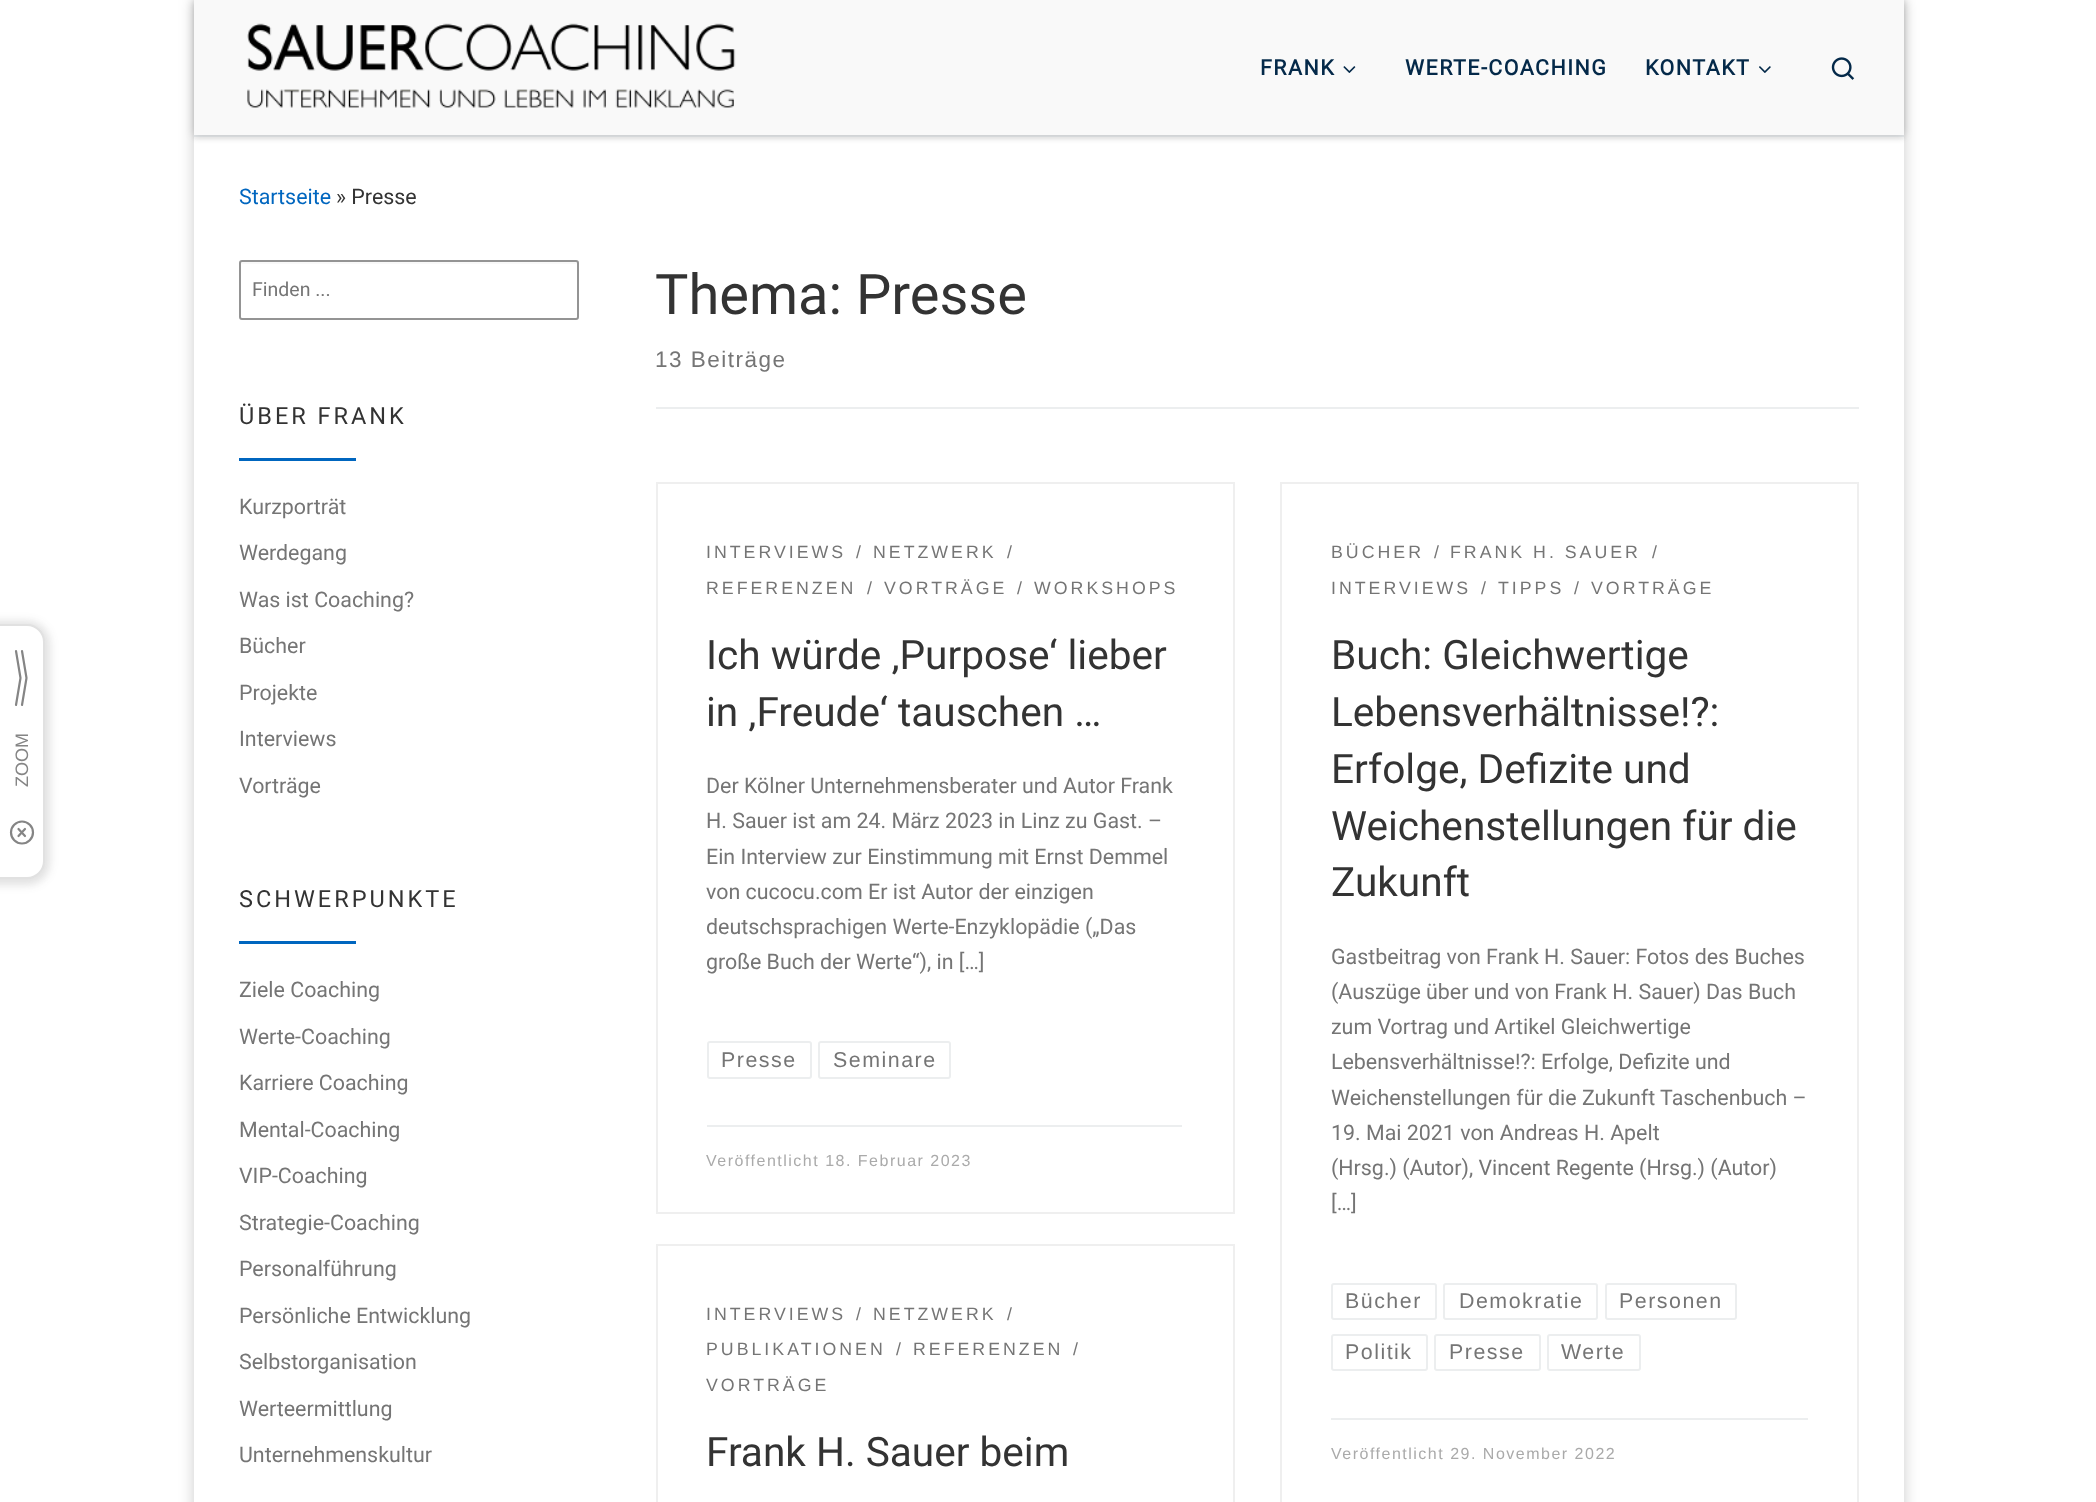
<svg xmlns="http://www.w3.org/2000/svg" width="2096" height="1502">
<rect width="100%" height="100%" fill="#fff"/>
<rect x="-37" y="621" width="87" height="264" rx="23" fill="#33333326" filter="blur(4.5px)"/>
<rect x="-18" y="624" width="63" height="255" rx="18" fill="#fff"/>
<rect x="-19" y="625" width="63" height="253" rx="17" fill="none" stroke="#33333326" stroke-width="2"/>
<path d="M22 651l4.5 27m0 0l-4.5 27m-1.5-27l-4.5-27m0 54l4.5-27" fill="none" stroke="#858585" stroke-width="2.2" stroke-linecap="round"/>
<text x="28" y="787" transform="rotate(-90 28 787)" style="font-family:Liberation Sans;font-size:18px;fill:#858585">ZOOM</text>
<circle cx="22" cy="832.5" r="11" fill="none" stroke="#858585" stroke-width="2.2"/>
<path d="M25 829l-6.5 7m0-7l6.5 7" fill="none" stroke="#858585" stroke-width="2.2" stroke-linecap="round" stroke-linejoin="round"/>
<rect x="194" width="1710" height="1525" fill="#00000033" filter="blur(7.5px)"/>
<rect x="194" y="137" width="1710" height="1365" fill="#fff"/>
<rect x="194" y="3" width="1710" height="137" fill="#66666614" filter="blur(1.5px)"/>
<path d="M194 135v2h1710v-135v133z" fill="#e7eaec"/>
<rect x="194" width="1710" height="135" fill="#00000033" filter="blur(4px)"/>
<rect x="194" width="1710" height="135" fill="#f9f9f9"/>
<image x="247" y="23" width="489" height="85" href="media/1.png"/>
<text x="1260" y="75" style="font-family:Roboto;font-size:21.4px;font-weight:bold;letter-spacing:1.5px;fill:#042949">FRANK</text>
<image x="1343" y="66" width="13" height="7" href="media/2.png"/>
<text x="1405" y="75" style="font-family:Roboto;font-size:21.4px;font-weight:bold;letter-spacing:1.5px;fill:#042949">WERTE-COACHING</text>
<text x="1645" y="75" style="font-family:Roboto;font-size:21.4px;font-weight:bold;letter-spacing:1.5px;fill:#042949">KONTAKT</text>
<image x="1759" y="66" width="12" height="7" href="media/3.png"/>
<image x="1831" y="57" width="24" height="23" href="media/4.png"/>
<text x="239" y="204" style="font-family:Roboto;font-size:21.4px;fill:#0066bf">Startseite</text>
<text x="336" y="204" style="font-family:Roboto;font-size:21.4px;fill:#333">» Presse</text>
<path d="M242 264h334c1 0 2 1 2 2c0-1 1-5-1-5h-336c-2 1-1 4-1 5c0-1 1-2 2-2z" fill="#f9f9f9"/>
<rect x="240" y="261" width="338" height="58" rx="2" fill="none" stroke="#949494" stroke-width="2"/>
<text x="252" y="296" style="font-family:Roboto;font-size:19.5px;fill:#757575">Finden ...</text>
<text x="239" y="424" style="font-family:Roboto;font-size:23.5px;letter-spacing:3px;fill:#333">ÜBER FRANK</text>
<rect x="239" y="458" width="117" height="3" fill="#0066bf"/>
<text x="239" y="514" style="font-family:Roboto;font-size:21.4px;fill:#757575">Kurzporträt</text>
<text x="239" y="560" style="font-family:Roboto;font-size:21.4px;fill:#757575">Werdegang</text>
<text x="239" y="607" style="font-family:Roboto;font-size:21.4px;fill:#757575">Was ist Coaching?</text>
<text x="239" y="653" style="font-family:Roboto;font-size:21.4px;fill:#757575">Bücher</text>
<text x="239" y="700" style="font-family:Roboto;font-size:21.4px;fill:#757575">Projekte</text>
<text x="239" y="746" style="font-family:Roboto;font-size:21.4px;fill:#757575">Interviews</text>
<text x="239" y="793" style="font-family:Roboto;font-size:21.4px;fill:#757575">Vorträge</text>
<text x="239" y="907" style="font-family:Roboto;font-size:23.5px;letter-spacing:3px;fill:#333">SCHWERPUNKTE</text>
<rect x="239" y="941" width="117" height="3" fill="#0066bf"/>
<text x="239" y="997" style="font-family:Roboto;font-size:21.4px;fill:#757575">Ziele Coaching</text>
<text x="239" y="1044" style="font-family:Roboto;font-size:21.4px;fill:#757575">Werte-Coaching</text>
<text x="239" y="1090" style="font-family:Roboto;font-size:21.4px;fill:#757575">Karriere Coaching</text>
<text x="239" y="1137" style="font-family:Roboto;font-size:21.4px;fill:#757575">Mental-Coaching</text>
<text x="239" y="1183" style="font-family:Roboto;font-size:21.4px;fill:#757575">VIP-Coaching</text>
<text x="239" y="1230" style="font-family:Roboto;font-size:21.4px;fill:#757575">Strategie-Coaching</text>
<text x="239" y="1276" style="font-family:Roboto;font-size:21.4px;fill:#757575">Personalführung</text>
<text x="239" y="1323" style="font-family:Roboto;font-size:21.4px;fill:#757575">Persönliche Entwicklung</text>
<text x="239" y="1369" style="font-family:Roboto;font-size:21.4px;fill:#757575">Selbstorganisation</text>
<text x="239" y="1416" style="font-family:Roboto;font-size:21.4px;fill:#757575">Werteermittlung</text>
<text x="239" y="1462" style="font-family:Roboto;font-size:21.4px;fill:#757575">Unternehmenskultur</text>
<text x="655" y="314" style="font-family:Roboto;font-size:56px;fill:#333">Thema: Presse</text>
<text x="655" y="367" style="font-family:Liberation Sans;font-size:22.5px;letter-spacing:1.5px;fill:#757575">13 Beiträge</text>
<rect x="656" y="407" width="1203" height="2" fill="#eceeef"/>
<rect x="657" y="483" width="577" height="730" fill="none" stroke="#efefef" stroke-width="2"/>
<text x="706" y="558" style="font-family:Liberation Sans;font-size:17.75px;letter-spacing:3px;fill:#757575">INTERVIEWS</text>
<text x="856" y="558" style="font-family:Liberation Sans;font-size:17.75px;letter-spacing:3px;fill:#757575">/</text>
<text x="873" y="558" style="font-family:Liberation Sans;font-size:17.75px;letter-spacing:3px;fill:#757575">NETZWERK</text>
<text x="1007" y="558" style="font-family:Liberation Sans;font-size:17.75px;letter-spacing:3px;fill:#757575">/</text>
<text x="706" y="594" style="font-family:Liberation Sans;font-size:17.75px;letter-spacing:3px;fill:#757575">REFERENZEN</text>
<text x="867" y="594" style="font-family:Liberation Sans;font-size:17.75px;letter-spacing:3px;fill:#757575">/</text>
<text x="884" y="594" style="font-family:Liberation Sans;font-size:17.75px;letter-spacing:3px;fill:#757575">VORTRÄGE</text>
<text x="1017" y="594" style="font-family:Liberation Sans;font-size:17.75px;letter-spacing:3px;fill:#757575">/</text>
<text x="1034" y="594" style="font-family:Liberation Sans;font-size:17.75px;letter-spacing:3px;fill:#757575">WORKSHOPS</text>
<text x="706" y="669" style="font-family:Roboto;font-size:40.6px;fill:#333">Ich würde ‚Purpose‘ lieber</text>
<text x="706" y="726" style="font-family:Roboto;font-size:40.6px;fill:#333">in ‚Freude‘ tauschen …</text>
<text x="706" y="793" style="font-family:Roboto;font-size:21.4px;fill:#757575">Der Kölner Unternehmensberater und Autor Frank</text>
<text x="706" y="828" style="font-family:Roboto;font-size:21.4px;fill:#757575">H. Sauer ist am 24. März 2023 in Linz zu Gast. –</text>
<text x="706" y="864" style="font-family:Roboto;font-size:21.4px;fill:#757575">Ein Interview zur Einstimmung mit Ernst Demmel</text>
<text x="706" y="899" style="font-family:Roboto;font-size:21.4px;fill:#757575">von cucocu.com Er ist Autor der einzigen</text>
<text x="706" y="934" style="font-family:Roboto;font-size:21.4px;fill:#757575">deutschsprachigen Werte-Enzyklopädie („Das</text>
<text x="706" y="969" style="font-family:Roboto;font-size:21.4px;fill:#757575">große Buch der Werte“), in […]</text>
<rect x="708" y="1042" width="103" height="36" rx="2" fill="none" stroke="#eceeef" stroke-width="2"/>
<text x="721" y="1067" style="font-family:Liberation Sans;font-size:21.4px;letter-spacing:1.5px;fill:#757575">Presse</text>
<rect x="819" y="1042" width="131" height="36" rx="2" fill="none" stroke="#eceeef" stroke-width="2"/>
<text x="833" y="1067" style="font-family:Liberation Sans;font-size:21.4px;letter-spacing:1.5px;fill:#757575">Seminare</text>
<rect x="707" y="1125" width="475" height="2" fill="#eceeef"/>
<text x="706" y="1166" style="font-family:Liberation Sans;font-size:16px;letter-spacing:1.5px;fill:#aaa">Veröffentlicht 18. Februar 2023</text>
<rect x="1281" y="483" width="577" height="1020" fill="none" stroke="#efefef" stroke-width="2"/>
<text x="1331" y="558" style="font-family:Liberation Sans;font-size:17.75px;letter-spacing:3px;fill:#757575">BÜCHER</text>
<text x="1434" y="558" style="font-family:Liberation Sans;font-size:17.75px;letter-spacing:3px;fill:#757575">/</text>
<text x="1450" y="558" style="font-family:Liberation Sans;font-size:17.75px;letter-spacing:3px;fill:#757575">FRANK H. SAUER</text>
<text x="1652" y="558" style="font-family:Liberation Sans;font-size:17.75px;letter-spacing:3px;fill:#757575">/</text>
<text x="1331" y="594" style="font-family:Liberation Sans;font-size:17.75px;letter-spacing:3px;fill:#757575">INTERVIEWS</text>
<text x="1481" y="594" style="font-family:Liberation Sans;font-size:17.75px;letter-spacing:3px;fill:#757575">/</text>
<text x="1498" y="594" style="font-family:Liberation Sans;font-size:17.75px;letter-spacing:3px;fill:#757575">TIPPS</text>
<text x="1574" y="594" style="font-family:Liberation Sans;font-size:17.75px;letter-spacing:3px;fill:#757575">/</text>
<text x="1591" y="594" style="font-family:Liberation Sans;font-size:17.75px;letter-spacing:3px;fill:#757575">VORTRÄGE</text>
<text x="1331" y="669" style="font-family:Roboto;font-size:40.6px;fill:#333">Buch: Gleichwertige</text>
<text x="1331" y="726" style="font-family:Roboto;font-size:40.6px;fill:#333">Lebensverhältnisse!?:</text>
<text x="1331" y="783" style="font-family:Roboto;font-size:40.6px;fill:#333">Erfolge, Defizite und</text>
<text x="1331" y="840" style="font-family:Roboto;font-size:40.6px;fill:#333">Weichenstellungen für die</text>
<text x="1331" y="896" style="font-family:Roboto;font-size:40.6px;fill:#333">Zukunft</text>
<text x="1331" y="964" style="font-family:Roboto;font-size:21.4px;fill:#757575">Gastbeitrag von Frank H. Sauer: Fotos des Buches</text>
<text x="1331" y="999" style="font-family:Roboto;font-size:21.4px;fill:#757575">(Auszüge über und von Frank H. Sauer) Das Buch</text>
<text x="1331" y="1034" style="font-family:Roboto;font-size:21.4px;fill:#757575">zum Vortrag und Artikel Gleichwertige</text>
<text x="1331" y="1069" style="font-family:Roboto;font-size:21.4px;fill:#757575">Lebensverhältnisse!?: Erfolge, Defizite und</text>
<text x="1331" y="1105" style="font-family:Roboto;font-size:21.4px;fill:#757575">Weichenstellungen für die Zukunft Taschenbuch –</text>
<text x="1331" y="1140" style="font-family:Roboto;font-size:21.4px;fill:#757575">19. Mai 2021 von Andreas H. Apelt</text>
<text x="1331" y="1175" style="font-family:Roboto;font-size:21.4px;fill:#757575">(Hrsg.) (Autor), Vincent Regente (Hrsg.) (Autor)</text>
<text x="1331" y="1210" style="font-family:Roboto;font-size:21.4px;fill:#757575">[…]</text>
<rect x="1332" y="1284" width="104" height="35" rx="2" fill="none" stroke="#eceeef" stroke-width="2"/>
<text x="1345" y="1308" style="font-family:Liberation Sans;font-size:21.4px;letter-spacing:1.5px;fill:#757575">Bücher</text>
<rect x="1444" y="1284" width="153" height="35" rx="2" fill="none" stroke="#eceeef" stroke-width="2"/>
<text x="1459" y="1308" style="font-family:Liberation Sans;font-size:21.4px;letter-spacing:1.5px;fill:#757575">Demokratie</text>
<rect x="1606" y="1284" width="130" height="35" rx="2" fill="none" stroke="#eceeef" stroke-width="2"/>
<text x="1619" y="1308" style="font-family:Liberation Sans;font-size:21.4px;letter-spacing:1.5px;fill:#757575">Personen</text>
<rect x="1332" y="1335" width="95" height="35" rx="2" fill="none" stroke="#eceeef" stroke-width="2"/>
<text x="1345" y="1359" style="font-family:Liberation Sans;font-size:21.4px;letter-spacing:1.5px;fill:#757575">Politik</text>
<rect x="1435" y="1335" width="105" height="35" rx="2" fill="none" stroke="#eceeef" stroke-width="2"/>
<text x="1449" y="1359" style="font-family:Liberation Sans;font-size:21.4px;letter-spacing:1.5px;fill:#757575">Presse</text>
<rect x="1548" y="1335" width="92" height="35" rx="2" fill="none" stroke="#eceeef" stroke-width="2"/>
<text x="1561" y="1359" style="font-family:Liberation Sans;font-size:21.4px;letter-spacing:1.5px;fill:#757575">Werte</text>
<rect x="1331" y="1418" width="477" height="2" fill="#eceeef"/>
<text x="1331" y="1459" style="font-family:Liberation Sans;font-size:16px;letter-spacing:1.5px;fill:#aaa">Veröffentlicht 29. November 2022</text>
<rect x="657" y="1245" width="577" height="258" fill="none" stroke="#efefef" stroke-width="2"/>
<text x="706" y="1320" style="font-family:Liberation Sans;font-size:17.75px;letter-spacing:3px;fill:#757575">INTERVIEWS</text>
<text x="856" y="1320" style="font-family:Liberation Sans;font-size:17.75px;letter-spacing:3px;fill:#757575">/</text>
<text x="873" y="1320" style="font-family:Liberation Sans;font-size:17.75px;letter-spacing:3px;fill:#757575">NETZWERK</text>
<text x="1007" y="1320" style="font-family:Liberation Sans;font-size:17.75px;letter-spacing:3px;fill:#757575">/</text>
<text x="706" y="1355" style="font-family:Liberation Sans;font-size:17.75px;letter-spacing:3px;fill:#757575">PUBLIKATIONEN</text>
<text x="896" y="1355" style="font-family:Liberation Sans;font-size:17.75px;letter-spacing:3px;fill:#757575">/</text>
<text x="913" y="1355" style="font-family:Liberation Sans;font-size:17.75px;letter-spacing:3px;fill:#757575">REFERENZEN</text>
<text x="1073" y="1355" style="font-family:Liberation Sans;font-size:17.75px;letter-spacing:3px;fill:#757575">/</text>
<text x="706" y="1391" style="font-family:Liberation Sans;font-size:17.75px;letter-spacing:3px;fill:#757575">VORTRÄGE</text>
<text x="706" y="1466" style="font-family:Roboto;font-size:40.6px;fill:#333">Frank H. Sauer beim</text>
</svg>
